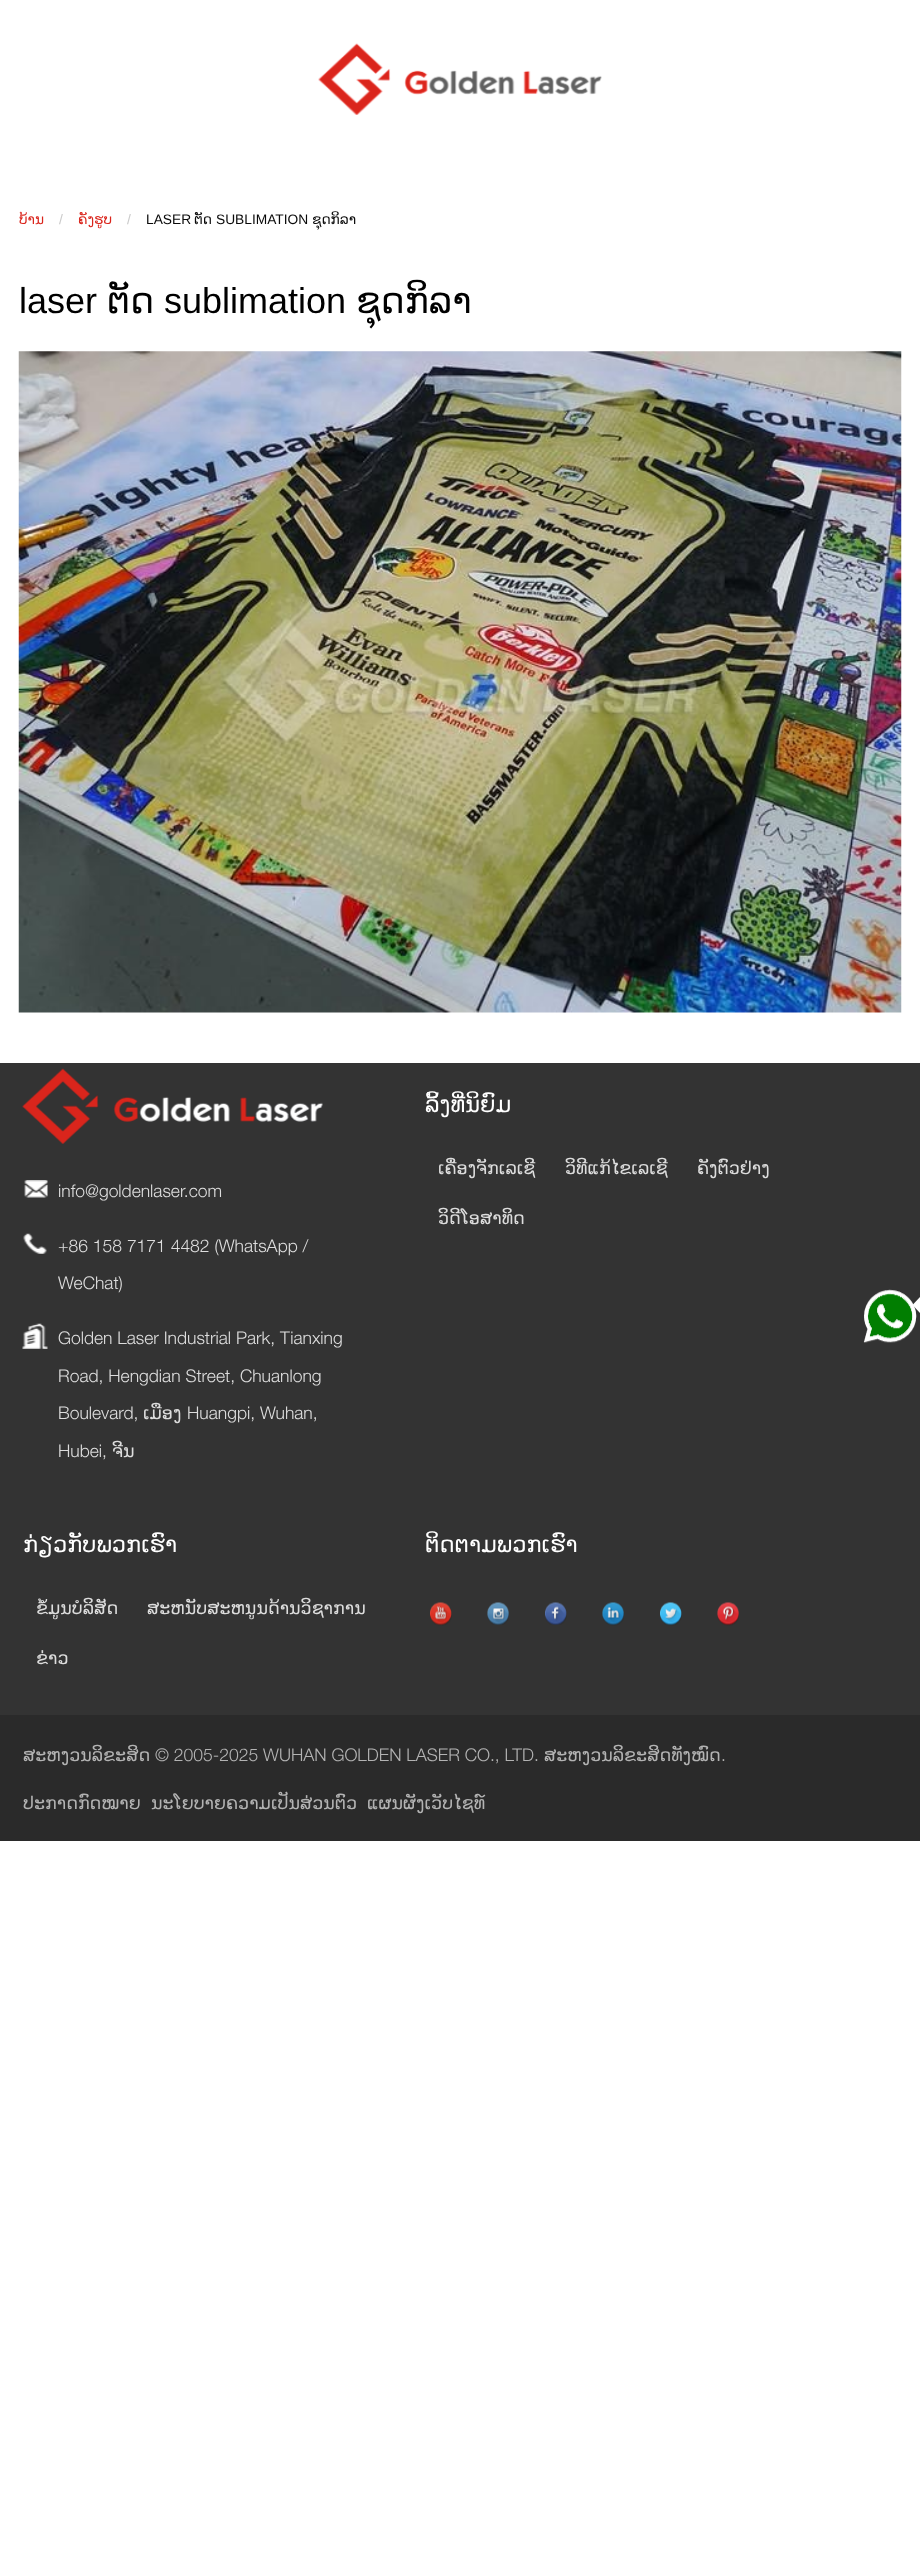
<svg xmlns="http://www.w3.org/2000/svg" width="920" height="2572">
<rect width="100%" height="100%" fill="#fff"/>
<image x="318" y="43" width="284" height="72" href="media/1.png"/>
<text x="19" y="224" style="font-family:DejaVu Sans;font-size:13.75px;fill:#da251c">ບ້ານ</text>
<text x="59" y="224" style="font-family:Liberation Sans;font-size:13.75px;fill:#cacaca">/</text>
<text x="78" y="224" style="font-family:DejaVu Sans;font-size:13.75px;fill:#da251c">ຄັງຮູບ</text>
<text x="127" y="224" style="font-family:Liberation Sans;font-size:13.75px;fill:#cacaca">/</text>
<text x="146" y="224" style="font-family:Liberation Sans;font-size:13.75px;fill:#0a0a0a">LASER</text>
<text x="194" y="224" style="font-family:DejaVu Sans;font-size:13.75px;fill:#0a0a0a">ຕັດ</text>
<text x="216" y="224" style="font-family:Liberation Sans;font-size:13.75px;fill:#0a0a0a">SUBLIMATION</text>
<text x="312" y="224" style="font-family:DejaVu Sans;font-size:13.75px;fill:#0a0a0a">ຊຸດກິລາ</text>
<text x="19" y="313" style="font-family:Liberation Sans;font-size:36px;fill:#000">laser</text>
<text x="107" y="313" style="font-family:DejaVu Sans;font-size:36px;fill:#000">ຕັດ</text>
<text x="164" y="313" style="font-family:Liberation Sans;font-size:36px;fill:#000">sublimation</text>
<text x="356" y="313" style="font-family:DejaVu Sans;font-size:36px;fill:#000">ຊຸດກິລາ</text>
<image x="18" y="351" width="884" height="662" href="media/2.png"/>
<rect y="1063" width="920" height="652" fill="#333"/>
<text x="425" y="1112" style="font-family:DejaVu Sans;font-size:22.5px;fill:#fff">ລິ້ງທີ່ນິຍົມ</text>
<text x="438" y="1174" style="font-family:DejaVu Sans;font-size:17.5px;fill:#ddd">ເຄື່ອງຈັກເລເຊີ</text>
<text x="565" y="1174" style="font-family:DejaVu Sans;font-size:17.5px;fill:#ddd">ວິທີແກ້ໄຂເລເຊີ</text>
<text x="697" y="1174" style="font-family:DejaVu Sans;font-size:17.5px;fill:#ddd">ຄັງຕົວຢ່າງ</text>
<text x="438" y="1224" style="font-family:DejaVu Sans;font-size:17.5px;fill:#ddd">ວິດີໂອສາທິດ</text>
<image x="22" y="1068" width="301" height="76" href="media/3.png"/>
<image x="24" y="1180" width="24" height="18" href="media/4.png"/>
<text x="58" y="1197" style="font-family:Helvetica Neue;font-size:17.5px;font-weight:300;fill:#ddd">info@goldenlaser.com</text>
<image x="23" y="1233" width="24" height="21" href="media/5.png"/>
<text x="58" y="1252" style="font-family:Helvetica Neue;font-size:17.5px;font-weight:300;fill:#ddd">+86 158 7171 4482 (WhatsApp /</text>
<text x="58" y="1289" style="font-family:Helvetica Neue;font-size:17.5px;font-weight:300;fill:#ddd">WeChat)</text>
<image x="22" y="1323" width="26" height="26" href="media/6.png"/>
<text x="58" y="1344" style="font-family:Helvetica Neue;font-size:17.5px;font-weight:300;fill:#ddd">Golden Laser Industrial Park, Tianxing</text>
<text x="58" y="1382" style="font-family:Helvetica Neue;font-size:17.5px;font-weight:300;fill:#ddd">Road, Hengdian Street, Chuanlong</text>
<text x="58" y="1419" style="font-family:Helvetica Neue;font-size:17.5px;font-weight:300;fill:#ddd">Boulevard,</text>
<text x="143" y="1419" style="font-family:DejaVu Sans;font-size:17.5px;fill:#ddd">ເມືອງ</text>
<text x="187" y="1419" style="font-family:Helvetica Neue;font-size:17.5px;font-weight:300;fill:#ddd">Huangpi, Wuhan,</text>
<text x="58" y="1457" style="font-family:Helvetica Neue;font-size:17.5px;font-weight:300;fill:#ddd">Hubei,</text>
<text x="112" y="1457" style="font-family:DejaVu Sans;font-size:17.5px;fill:#ddd">ຈີນ</text>
<text x="23" y="1552" style="font-family:DejaVu Sans;font-size:22.5px;fill:#fff">ກ່ຽວກັບພວກເຮົາ</text>
<text x="36" y="1614" style="font-family:DejaVu Sans;font-size:17.5px;fill:#ddd">ຂໍ້ມູນບໍລິສັດ</text>
<text x="147" y="1614" style="font-family:DejaVu Sans;font-size:17.5px;fill:#ddd">ສະຫນັບສະຫນູນດ້ານວິຊາການ</text>
<text x="36" y="1664" style="font-family:DejaVu Sans;font-size:17.5px;fill:#ddd">ຂ່າວ</text>
<text x="425" y="1552" style="font-family:DejaVu Sans;font-size:22.5px;fill:#fff">ຕິດຕາມພວກເຮົາ</text>
<image x="430" y="1602" width="22" height="24" href="media/7.png"/>
<image x="487" y="1602" width="22" height="23" href="media/8.png"/>
<image x="545" y="1602" width="22" height="23" href="media/9.png"/>
<image x="602" y="1602" width="22" height="24" href="media/10.png"/>
<image x="660" y="1602" width="22" height="24" href="media/11.png"/>
<image x="717" y="1602" width="22" height="24" href="media/12.png"/>
<rect y="1715" width="920" height="126" fill="#2a2a2a"/>
<text x="23" y="1761" style="font-family:DejaVu Sans;font-size:17.5px;fill:#b3b3b3">ສະຫງວນລິຂະສິດ</text>
<text x="155" y="1761" style="font-family:Helvetica Neue;font-size:17.5px;font-weight:300;fill:#b3b3b3">© 2005-2025 WUHAN GOLDEN LASER CO., LTD.</text>
<text x="544" y="1761" style="font-family:DejaVu Sans;font-size:17.5px;fill:#b3b3b3">ສະຫງວນລິຂະສິດທັງໝົດ</text>
<text x="721" y="1761" style="font-family:Helvetica Neue;font-size:17.5px;font-weight:300;fill:#b3b3b3">.</text>
<text x="23" y="1809" style="font-family:DejaVu Sans;font-size:17.5px;fill:#b3b3b3">ປະກາດກົດໝາຍ</text>
<text x="151" y="1809" style="font-family:DejaVu Sans;font-size:17.5px;fill:#b3b3b3">ນະໂຍບາຍຄວາມເປັນສ່ວນຕົວ</text>
<text x="367" y="1809" style="font-family:DejaVu Sans;font-size:17.5px;fill:#b3b3b3">ແຜນຜັງເວັບໄຊທ໌</text>
<image x="863" y="1289" width="54" height="54" href="media/13.png"/>
<path d="M912.5 1305l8.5-9l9 9l-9 9z" fill="#fff"/>
</svg>
